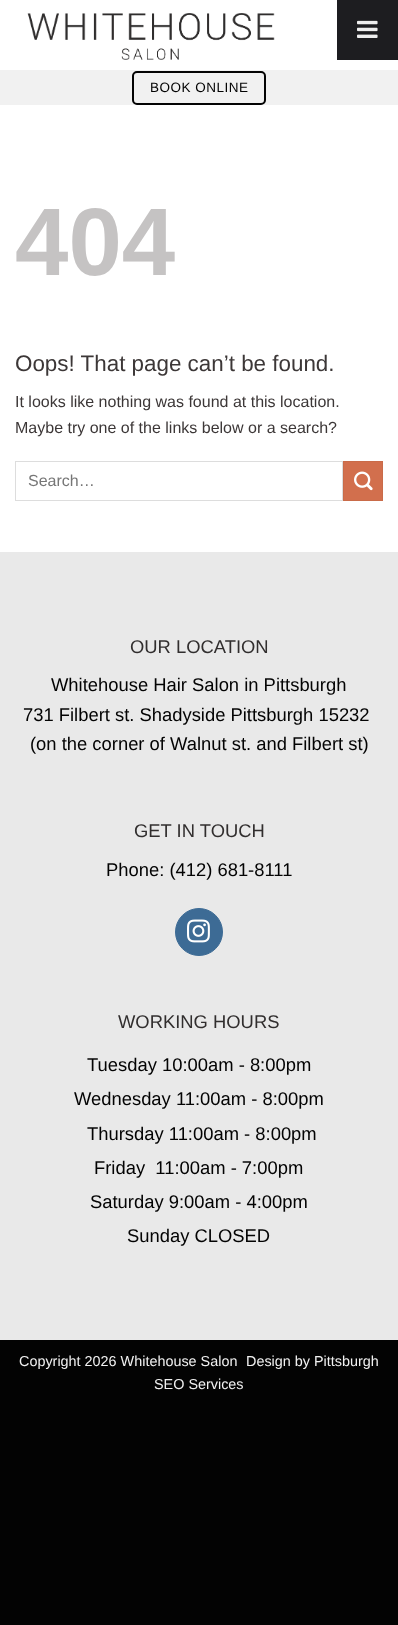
<svg xmlns="http://www.w3.org/2000/svg" width="398" height="1625">
<rect width="100%" height="100%" fill="#030303"/>
<rect width="398" height="552" fill="#fff"/>
<rect x="337" width="61" height="60" fill="#1d1d20"/>
<image x="357" y="20" width="21" height="18" href="media/1.png"/>
<image x="27" y="13" width="248" height="47" href="media/2.png"/>
<rect y="70" width="398" height="35" fill="#f1f1f1"/>
<rect x="133" y="72" width="132" height="32" rx="4" fill="none" stroke="#030303" stroke-width="2"/>
<text x="150" y="92" style="font-family:Liberation Sans;font-size:13.5px;letter-spacing:0.5px;fill:#030303">BOOK ONLINE</text>
<text x="15" y="275" style="font-family:Liberation Sans;font-size:96px;font-weight:bold;fill:#c5c3c3">404</text>
<text x="15" y="371" style="font-family:Liberation Sans;font-size:22.4px;fill:#3c3737">Oops! That page can’t be found.</text>
<text x="15" y="407" style="font-family:Liberation Sans;font-size:16px;fill:#3c3737">It looks like nothing was found at this location.</text>
<text x="15" y="433" style="font-family:Liberation Sans;font-size:16px;fill:#3c3737">Maybe try one of the links below or a search?</text>
<rect x="15.5" y="461.5" width="327" height="39" fill="none" stroke="#ddd"/>
<text x="28" y="486" style="font-family:Liberation Sans;font-size:16px;fill:#767676">Search…</text>
<rect x="343.5" y="461.5" width="39" height="39" fill="#d26f4d" stroke="#c96b49"/>
<image x="354" y="471" width="19" height="20" href="media/3.png"/>
<rect y="552" width="398" height="788" fill="#e9e9e9"/>
<text x="130" y="653" style="font-family:Liberation Sans;font-size:18.4px;fill:#312e2e">OUR LOCATION</text>
<text x="51" y="691" style="font-family:Liberation Sans;font-size:18.4px;fill:#030303">Whitehouse Hair Salon in Pittsburgh</text>
<text x="23" y="721" style="font-family:Liberation Sans;font-size:18.4px;fill:#030303">731 Filbert st. Shadyside Pittsburgh 15232</text>
<text x="30" y="750" style="font-family:Liberation Sans;font-size:18.4px;fill:#030303">(on the corner of Walnut st. and Filbert st)</text>
<text x="134" y="837" style="font-family:Liberation Sans;font-size:18.4px;fill:#312e2e">GET IN TOUCH</text>
<text x="106" y="876" style="font-family:Liberation Sans;font-size:18.4px;fill:#030303">Phone: (412) 681-8111</text>
<circle cx="199" cy="932" r="23.5" fill="#3d6b95" stroke="#3d6b95"/>
<image x="187" y="919" width="23" height="24" href="media/4.png"/>
<text x="118" y="1028" style="font-family:Liberation Sans;font-size:18.4px;fill:#312e2e">WORKING HOURS</text>
<text x="87" y="1071" style="font-family:Liberation Sans;font-size:18.4px;fill:#030303">Tuesday 10:00am - 8:00pm</text>
<text x="74" y="1105" style="font-family:Liberation Sans;font-size:18.4px;fill:#030303">Wednesday 11:00am - 8:00pm</text>
<text x="87" y="1140" style="font-family:Liberation Sans;font-size:18.4px;fill:#030303">Thursday 11:00am - 8:00pm</text>
<text x="94" y="1174" style="font-family:Liberation Sans;font-size:18.4px;fill:#030303" xml:space="preserve">Friday  11:00am - 7:00pm</text>
<text x="90" y="1208" style="font-family:Liberation Sans;font-size:18.4px;fill:#030303">Saturday 9:00am - 4:00pm</text>
<text x="127" y="1242" style="font-family:Liberation Sans;font-size:18.4px;fill:#030303">Sunday CLOSED</text>
<text x="19" y="1366" style="font-family:Liberation Sans;font-size:14.4px;fill:#f1f1f1">Copyright 2026 Whitehouse Salon</text>
<text x="246" y="1366" style="font-family:Liberation Sans;font-size:14.4px;fill:#f1f1f1">Design by Pittsburgh</text>
<text x="154" y="1389" style="font-family:Liberation Sans;font-size:14.4px;fill:#f1f1f1">SEO Services</text>
</svg>
